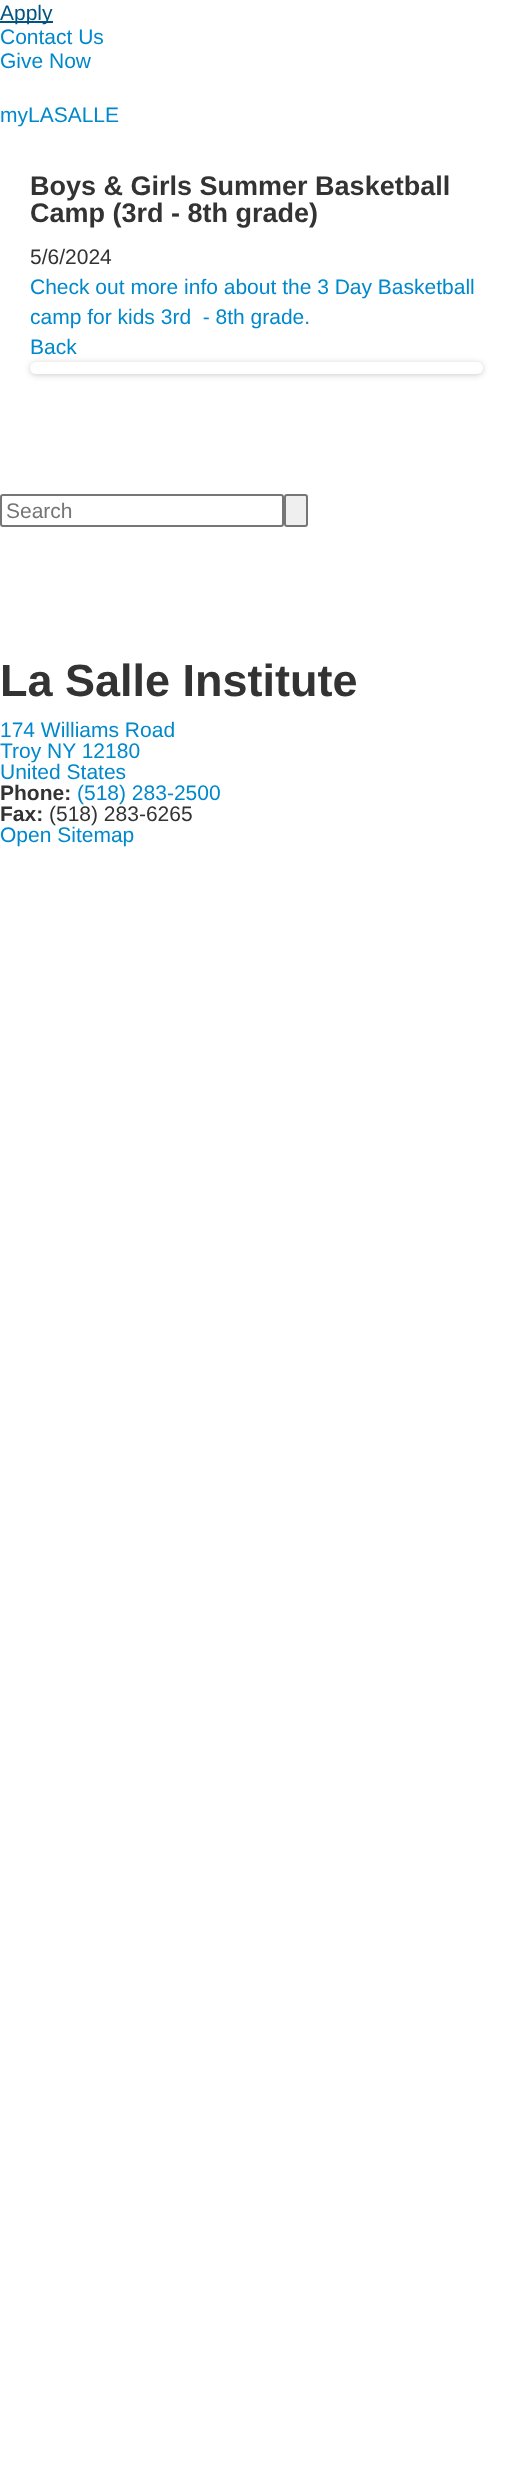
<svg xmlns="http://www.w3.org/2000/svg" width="513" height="2467">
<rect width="100%" height="100%" fill="#fff"/>
<rect y="21" width="53" height="2" fill="#005580"/>
<text x="0" y="20" style="font-family:Liberation Sans;font-size:21px;fill:#005580">Apply</text>
<text x="0" y="44" style="font-family:Liberation Sans;font-size:21px;fill:#08c">Contact Us</text>
<text x="0" y="68" style="font-family:Liberation Sans;font-size:21px;fill:#08c">Give Now</text>
<text x="0" y="122" style="font-family:Liberation Sans;font-size:21px;fill:#08c">myLASALLE</text>
<text x="30" y="195" style="font-family:Liberation Sans;font-size:27px;font-weight:bold;fill:#333">Boys &amp; Girls Summer Basketball</text>
<text x="30" y="222" style="font-family:Liberation Sans;font-size:27px;font-weight:bold;fill:#333">Camp (3rd - 8th grade)</text>
<text x="30" y="264" style="font-family:Liberation Sans;font-size:21px;fill:#333">5/6/2024</text>
<text x="30" y="294" style="font-family:Liberation Sans;font-size:21px;fill:#08c">Check out more info about the 3 Day Basketball</text>
<text x="30" y="324" style="font-family:Liberation Sans;font-size:21px;fill:#08c" xml:space="preserve">camp for kids 3rd  - 8th grade.</text>
<text x="30" y="354" style="font-family:Liberation Sans;font-size:21px;fill:#08c">Back</text>
<rect x="30" y="363" width="453" height="12" rx="6" fill="#00000033" filter="blur(3px)"/>
<rect x="30" y="362" width="453" height="12" rx="6" fill="#fff"/>
<rect x="1" y="495" width="282" height="31" rx="2" fill="none" stroke="#767676" stroke-width="2"/>
<text x="6" y="518" style="font-family:Liberation Sans;font-size:21px;fill:#757575">Search</text>
<rect x="285" y="495" width="22" height="31" rx="2" fill="#efefef" stroke="#767676" stroke-width="2"/>
<text x="0" y="696" style="font-family:Liberation Sans;font-size:45px;font-weight:bold;fill:#333">La Salle Institute</text>
<text x="0" y="737" style="font-family:Liberation Sans;font-size:21px;fill:#08c">174 Williams Road</text>
<text x="0" y="758" style="font-family:Liberation Sans;font-size:21px;fill:#08c">Troy NY 12180</text>
<text x="0" y="779" style="font-family:Liberation Sans;font-size:21px;fill:#08c">United States</text>
<text x="0" y="800" style="font-family:Liberation Sans;font-size:21px;font-weight:bold;fill:#333">Phone:</text>
<text x="77" y="800" style="font-family:Liberation Sans;font-size:21px;fill:#08c">(518) 283-2500</text>
<text x="0" y="821" style="font-family:Liberation Sans;font-size:21px;font-weight:bold;fill:#333">Fax:</text>
<text x="49" y="821" style="font-family:Liberation Sans;font-size:21px;fill:#333">(518) 283-6265</text>
<text x="0" y="842" style="font-family:Liberation Sans;font-size:21px;fill:#08c">Open Sitemap</text>
</svg>
